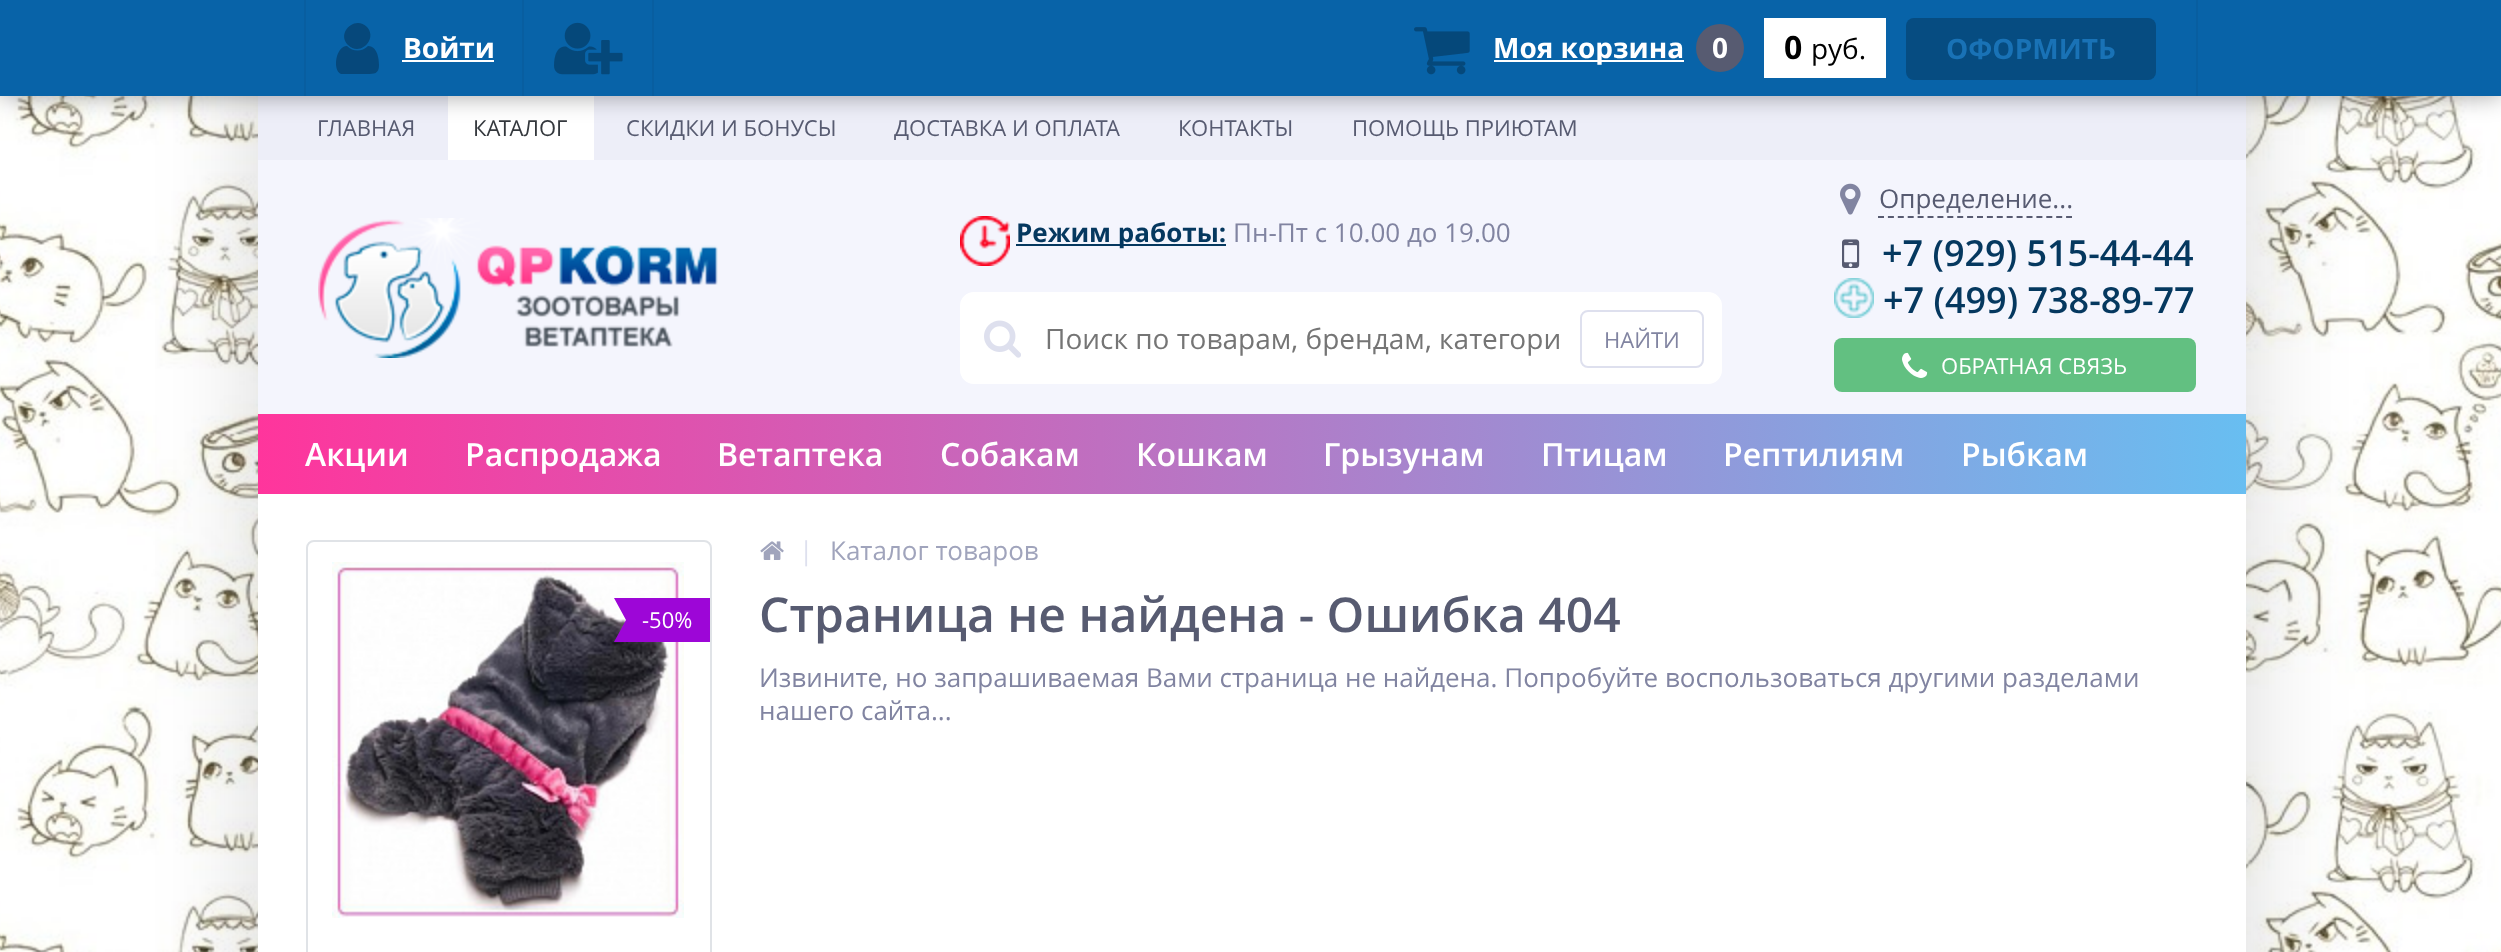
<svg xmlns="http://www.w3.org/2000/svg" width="2501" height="952">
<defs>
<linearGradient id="g1" gradientUnits="userSpaceOnUse" x1="258" y1="454" x2="2246" y2="454"><stop offset="0" stop-color="#ff359c"/><stop offset="1" stop-color="#68bef1"/></linearGradient>
</defs>
<rect width="100%" height="100%" fill="#fff"/>
<image x="0" y="96" width="2501" height="856" href="media/1.png"/>
<rect x="258" width="1988" height="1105" fill="#00000026" filter="blur(51px)"/>
<rect x="258" y="96" width="1988" height="64" fill="#edeef8"/>
<rect x="448" y="96" width="146" height="64" fill="#fff"/>
<rect width="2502" height="96" fill="#0000005c" filter="blur(12px)"/>
<rect width="2501" height="96" fill="#0863a8"/>
<rect x="2196" width="2" height="96" fill="#085ea0"/>
<rect x="304" width="2" height="96" fill="#085ea0"/>
<rect x="522" width="2" height="96" fill="#085ea0"/>
<path d="M379 65c0 9-5 9-12 9h-26c-9-4-5-28 6-28c6 6 15 6 21 0c9 0 11 12 11 19zm-12-38c11 12-7 30-19 18c-12-12 7-30 19-18z" fill="#06487b"/>
<text x="403" y="58" style="font-family:Open Sans;font-size:28px;font-weight:bold;fill:#fff">Войти</text>
<rect x="402" y="60" width="92" height="2" fill="#fff"/>
<rect x="652" width="2" height="96" fill="#085ea0"/>
<image x="554" y="22" width="69" height="53" href="media/2.png"/>
<image x="1414" y="27" width="56" height="48" href="media/3.png"/>
<rect x="1494" y="60" width="190" height="2" fill="#fff"/>
<text x="1493" y="58" style="font-family:Open Sans;font-size:28px;font-weight:bold;fill:#fff">Моя корзина</text>
<circle cx="1720" cy="48" r="24" fill="#575b71"/>
<text x="1712" y="58" style="font-family:Open Sans;font-size:28px;font-weight:bold;fill:#fff">0</text>
<rect x="1764" y="18" width="122" height="60" fill="#fff"/>
<text x="1784" y="59" style="font-family:Open Sans;font-size:32px;font-weight:bold;fill:#000">0</text>
<text x="1811" y="59" style="font-family:Open Sans;font-size:28px;fill:#000">руб.</text>
<rect x="1906" y="18" width="250" height="62" rx="8" fill="#064c81"/>
<text x="1946" y="59" style="font-family:Open Sans;font-size:28px;font-weight:bold;fill:#1972b6">ОФОРМИТЬ</text>
<text x="317" y="136" style="font-family:Open Sans;font-size:22px;fill:#575b71">ГЛАВНАЯ</text>
<text x="473" y="136" style="font-family:Open Sans;font-size:22px;fill:#34383d">КАТАЛОГ</text>
<text x="626" y="136" style="font-family:Open Sans;font-size:22px;fill:#575b71">СКИДКИ И БОНУСЫ</text>
<text x="894" y="136" style="font-family:Open Sans;font-size:22px;fill:#575b71">ДОСТАВКА И ОПЛАТА</text>
<text x="1178" y="136" style="font-family:Open Sans;font-size:22px;fill:#575b71">КОНТАКТЫ</text>
<text x="1352" y="136" style="font-family:Open Sans;font-size:22px;fill:#575b71">ПОМОЩЬ ПРИЮТАМ</text>
<rect x="258" y="160" width="1988" height="254" fill="#f4f5fd"/>
<image x="318" y="218" width="400" height="140" href="media/4.png"/>
<image x="960" y="216" width="50" height="50" href="media/5.png"/>
<rect x="1016" y="244" width="210" height="2" fill="#05385f"/>
<text x="1016" y="242" style="font-family:Open Sans;font-size:26px;font-weight:bold;fill:#05385f">Режим работы:</text>
<text x="1233" y="242" style="font-family:Open Sans;font-size:26px;fill:#8184a1">Пн-Пт с 10.00 до 19.00</text>
<rect x="961" y="293" width="760" height="90" rx="13" fill="#fff" stroke="#fff" stroke-width="2"/>
<image x="984" y="320" width="37" height="38" href="media/6.png"/>
<text x="1045" y="349" style="font-family:Open Sans;font-size:28px;fill:#757575">Поиск по товарам, брендам, категори</text>
<rect x="1581" y="311" width="122" height="56" rx="7" fill="none" stroke="#dee0ee" stroke-width="2"/>
<text x="1604" y="348" style="font-family:Open Sans;font-size:22px;fill:#8184a1">НАЙТИ</text>
<image x="1840" y="183" width="21" height="32" href="media/7.png"/>
<path d="M1878 217h194" fill="none" stroke="#575b71" stroke-width="2" stroke-dasharray="6 3.9"/>
<text x="1879" y="208" style="font-family:Open Sans;font-size:26px;fill:#575b71">Определение...</text>
<image x="1842" y="239" width="18" height="29" href="media/8.png"/>
<text x="1882" y="266" style="font-family:Open Sans;font-size:36px;font-weight:600;fill:#05385f">+7 (929) 515-44-44</text>
<image x="1834" y="278" width="40" height="40" href="media/9.png"/>
<text x="1883" y="313" style="font-family:Open Sans;font-size:36px;font-weight:600;fill:#05385f">+7 (499) 738-89-77</text>
<rect x="1834" y="338" width="362" height="54" rx="8" fill="#62c081"/>
<image x="1902" y="352" width="26" height="26" href="media/10.png"/>
<text x="1941" y="374" style="font-family:Open Sans;font-size:22px;fill:#fff">ОБРАТНАЯ СВЯЗЬ</text>
<rect x="258" y="414" width="1988" height="80" fill="url(#g1)"/>
<text x="305" y="466" style="font-family:Open Sans;font-size:32px;font-weight:600;fill:#fff">Акции</text>
<text x="465" y="466" style="font-family:Open Sans;font-size:32px;font-weight:600;fill:#fff">Распродажа</text>
<text x="717" y="466" style="font-family:Open Sans;font-size:32px;font-weight:600;fill:#fff">Ветаптека</text>
<text x="940" y="466" style="font-family:Open Sans;font-size:32px;font-weight:600;fill:#fff">Собакам</text>
<text x="1136" y="466" style="font-family:Open Sans;font-size:32px;font-weight:600;fill:#fff">Кошкам</text>
<text x="1323" y="466" style="font-family:Open Sans;font-size:32px;font-weight:600;fill:#fff">Грызунам</text>
<text x="1541" y="466" style="font-family:Open Sans;font-size:32px;font-weight:600;fill:#fff">Птицам</text>
<text x="1723" y="466" style="font-family:Open Sans;font-size:32px;font-weight:600;fill:#fff">Рептилиям</text>
<text x="1961" y="466" style="font-family:Open Sans;font-size:32px;font-weight:600;fill:#fff">Рыбкам</text>
<rect x="258" y="494" width="1988" height="458" fill="#fff"/>
<rect x="307" y="541" width="404" height="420" rx="7" fill="none" stroke="#e0e3e7" stroke-width="2"/>
<image x="332" y="562" width="352" height="356" href="media/11.png"/>
<rect x="626" y="598" width="84" height="44" fill="#9d06d7"/>
<path d="M614 598h12v22zm12 44h-12l12-22z" fill="#9d06d7"/>
<text x="642" y="628" style="font-family:Open Sans;font-size:22px;fill:#fff">-50%</text>
<image x="760" y="541" width="24" height="19" href="media/12.png"/>
<text x="799" y="560" style="font-family:Open Sans;font-size:26px;fill:#dee0ee">|</text>
<text x="830" y="560" style="font-family:Open Sans;font-size:26px;fill:#a0a4bc">Каталог товаров</text>
<text x="759" y="632" style="font-family:Open Sans;font-size:48px;font-weight:600;fill:#575b71">Страница не найдена - Ошибка 404</text>
<text x="759" y="687" style="font-family:Open Sans;font-size:26px;fill:#8184a1">Извините, но запрашиваемая Вами страница не найдена. Попробуйте воспользоваться другими разделами</text>
<text x="759" y="720" style="font-family:Open Sans;font-size:26px;fill:#8184a1">нашего сайта...</text>
</svg>
